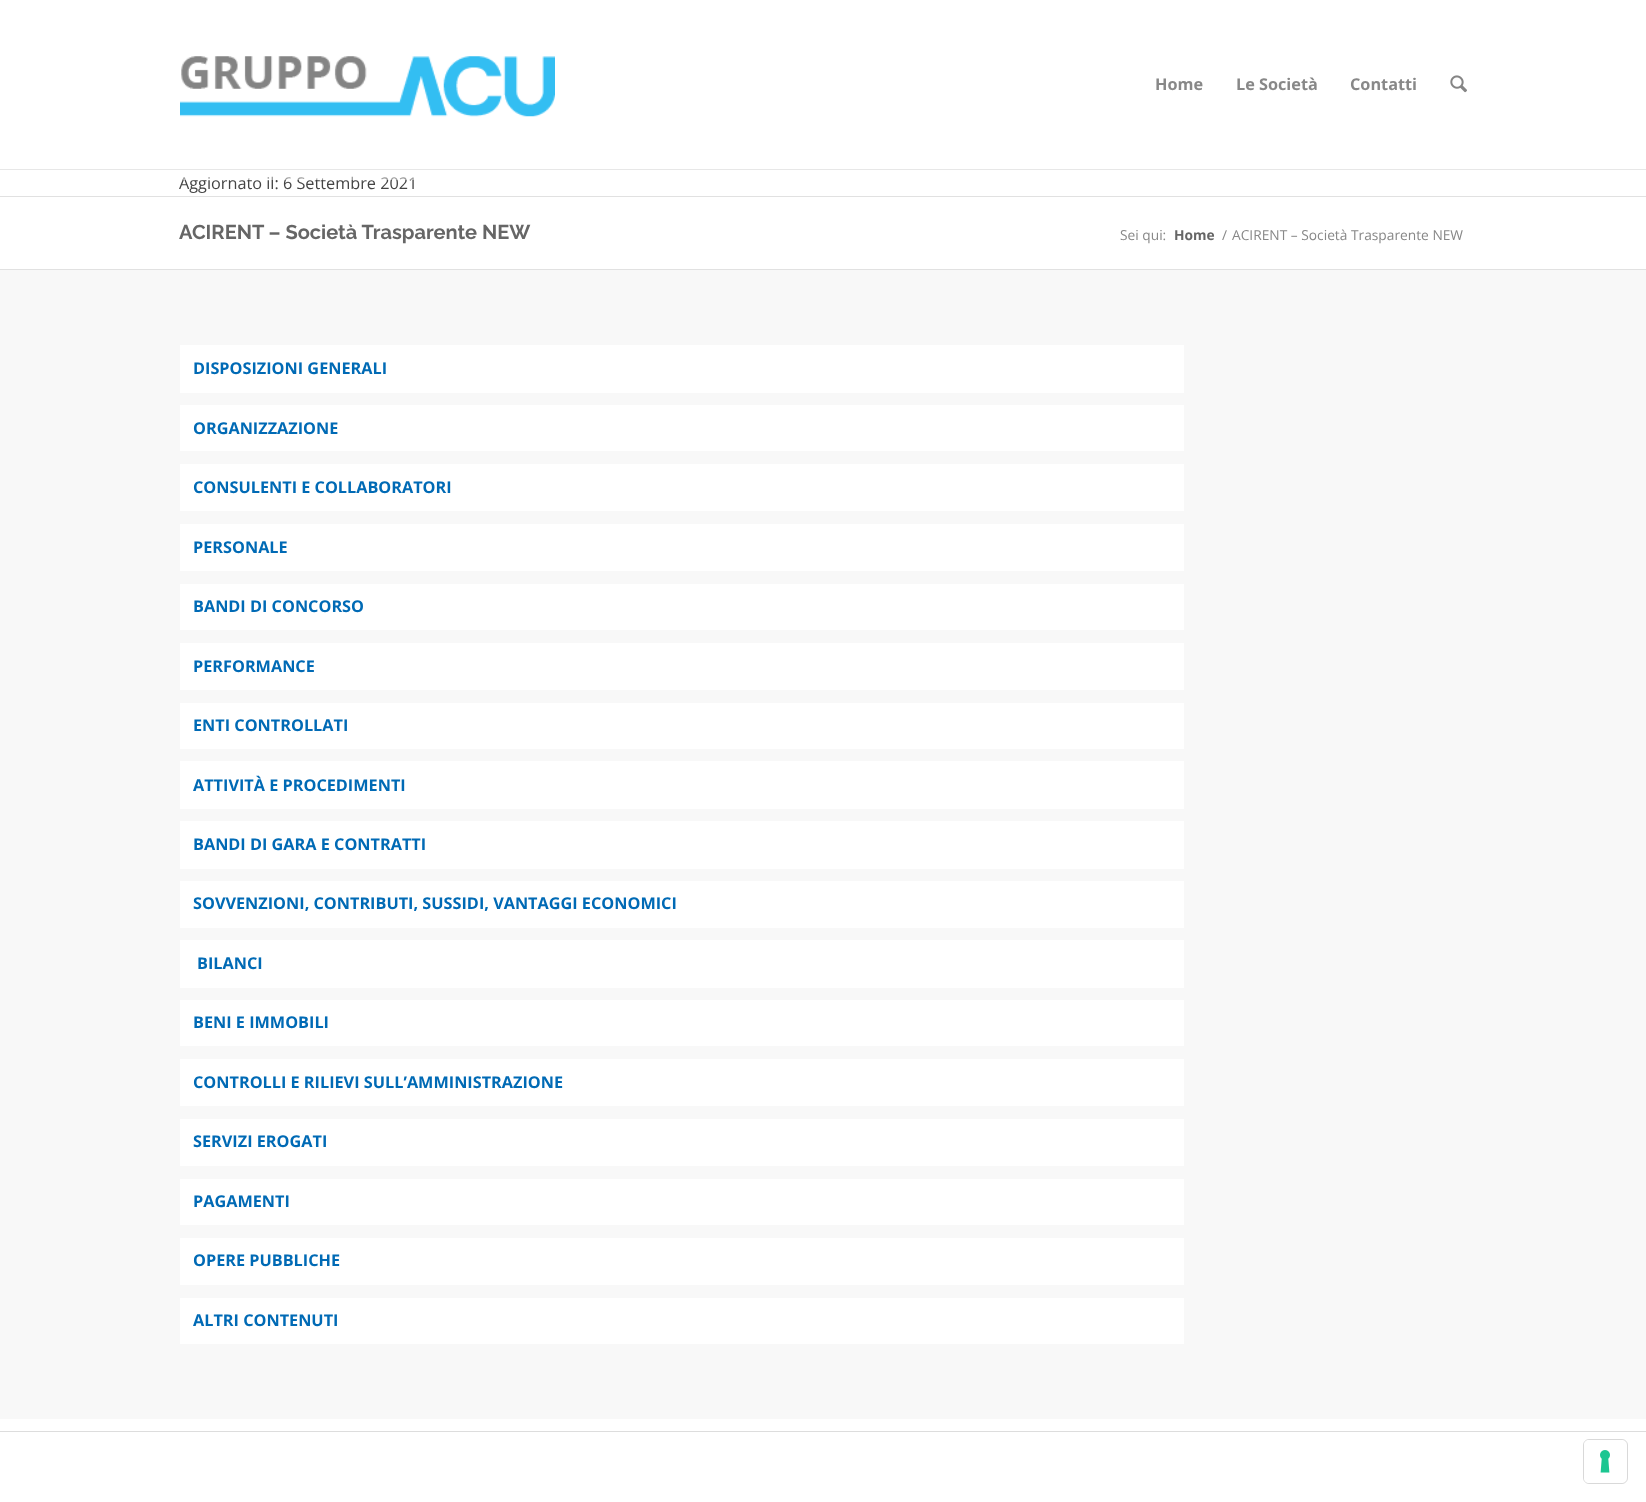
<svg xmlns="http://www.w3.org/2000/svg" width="1646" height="1502">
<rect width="100%" height="100%" fill="#fff"/>
<text x="179" y="189" style="font-family:Open Sans;font-size:16.25px;fill:#444">Aggiornato il: 6 Settembre 2021</text>
<rect x="183" y="176" width="232" height="4" fill="#ffffff7a"/>
<rect y="169" width="1646" height="1" fill="#e7e7e7"/>
<image x="180" y="56" width="375" height="61" href="media/1.png"/>
<text x="1155" y="90" style="font-family:Open Sans;font-size:16.25px;font-weight:bold;fill:#888">Home</text>
<text x="1236" y="90" style="font-family:Open Sans;font-size:16.25px;font-weight:bold;fill:#888">Le Società</text>
<text x="1350" y="90" style="font-family:Open Sans;font-size:16.25px;font-weight:bold;fill:#888">Contatti</text>
<image x="1450" y="75" width="17" height="18" href="media/2.png"/>
<rect y="196" width="1646" height="1" fill="#e1e1e1"/>
<text x="179" y="239" style="font-family:Raleway;font-size:20px;font-weight:bold;fill:#666">ACIRENT – Società Trasparente NEW</text>
<text x="1120" y="240" style="font-family:Open Sans;font-size:13.75px;fill:#888">Sei qui:</text>
<text x="1174" y="240" style="font-family:Open Sans;font-size:13.75px;font-weight:bold;fill:#666">Home</text>
<text x="1222" y="240" style="font-family:Open Sans;font-size:13.75px;fill:#888">/</text>
<text x="1232" y="240" style="font-family:Open Sans;font-size:13.75px;fill:#888">ACIRENT – Società Trasparente NEW</text>
<rect y="270" width="1646" height="1149" fill="#f8f8f8"/>
<rect y="269" width="1646" height="1" fill="#e1e1e1"/>
<rect x="180" y="345" width="1004" height="48" fill="#fff"/>
<text x="193" y="374" style="font-family:Open Sans;font-size:16.25px;font-weight:bold;fill:#006ab5">DISPOSIZIONI GENERALI</text>
<rect x="180" y="405" width="1004" height="46" fill="#fff"/>
<text x="193" y="434" style="font-family:Open Sans;font-size:16.25px;font-weight:bold;fill:#006ab5">ORGANIZZAZIONE</text>
<rect x="180" y="464" width="1004" height="47" fill="#fff"/>
<text x="193" y="493" style="font-family:Open Sans;font-size:16.25px;font-weight:bold;fill:#006ab5">CONSULENTI E COLLABORATORI</text>
<rect x="180" y="524" width="1004" height="47" fill="#fff"/>
<text x="193" y="553" style="font-family:Open Sans;font-size:16.25px;font-weight:bold;fill:#006ab5">PERSONALE</text>
<rect x="180" y="584" width="1004" height="46" fill="#fff"/>
<text x="193" y="612" style="font-family:Open Sans;font-size:16.25px;font-weight:bold;fill:#006ab5">BANDI DI CONCORSO</text>
<rect x="180" y="643" width="1004" height="47" fill="#fff"/>
<text x="193" y="672" style="font-family:Open Sans;font-size:16.25px;font-weight:bold;fill:#006ab5">PERFORMANCE</text>
<rect x="180" y="703" width="1004" height="46" fill="#fff"/>
<text x="193" y="731" style="font-family:Open Sans;font-size:16.25px;font-weight:bold;fill:#006ab5">ENTI CONTROLLATI</text>
<rect x="180" y="761" width="1004" height="48" fill="#fff"/>
<text x="193" y="791" style="font-family:Open Sans;font-size:16.25px;font-weight:bold;fill:#006ab5">ATTIVITÀ E PROCEDIMENTI</text>
<rect x="180" y="821" width="1004" height="48" fill="#fff"/>
<text x="193" y="850" style="font-family:Open Sans;font-size:16.25px;font-weight:bold;fill:#006ab5">BANDI DI GARA E CONTRATTI</text>
<rect x="180" y="881" width="1004" height="47" fill="#fff"/>
<text x="193" y="909" style="font-family:Open Sans;font-size:16.25px;font-weight:bold;fill:#006ab5">SOVVENZIONI, CONTRIBUTI, SUSSIDI, VANTAGGI ECONOMICI</text>
<rect x="180" y="940" width="1004" height="48" fill="#fff"/>
<text x="197" y="969" style="font-family:Open Sans;font-size:16.25px;font-weight:bold;fill:#006ab5">BILANCI</text>
<rect x="180" y="1000" width="1004" height="46" fill="#fff"/>
<text x="193" y="1028" style="font-family:Open Sans;font-size:16.25px;font-weight:bold;fill:#006ab5">BENI E IMMOBILI</text>
<rect x="180" y="1059" width="1004" height="47" fill="#fff"/>
<text x="193" y="1088" style="font-family:Open Sans;font-size:16.25px;font-weight:bold;fill:#006ab5">CONTROLLI E RILIEVI SULL’AMMINISTRAZIONE</text>
<rect x="180" y="1119" width="1004" height="47" fill="#fff"/>
<text x="193" y="1147" style="font-family:Open Sans;font-size:16.25px;font-weight:bold;fill:#006ab5">SERVIZI EROGATI</text>
<rect x="180" y="1179" width="1004" height="46" fill="#fff"/>
<text x="193" y="1207" style="font-family:Open Sans;font-size:16.25px;font-weight:bold;fill:#006ab5">PAGAMENTI</text>
<rect x="180" y="1238" width="1004" height="47" fill="#fff"/>
<text x="193" y="1266" style="font-family:Open Sans;font-size:16.25px;font-weight:bold;fill:#006ab5">OPERE PUBBLICHE</text>
<rect x="180" y="1298" width="1004" height="46" fill="#fff"/>
<text x="193" y="1326" style="font-family:Open Sans;font-size:16.25px;font-weight:bold;fill:#006ab5">ALTRI CONTENUTI</text>
<rect y="1431" width="1646" height="1" fill="#ddd"/>
<rect x="1583.5" y="1439.5" width="44" height="44" rx="5.5" fill="none" stroke="#d9d9d9"/>
<rect x="1584" y="1440" width="42" height="43" rx="5" fill="#fff"/>
<image x="1600" y="1450" width="10" height="23" href="media/3.png"/>
</svg>
